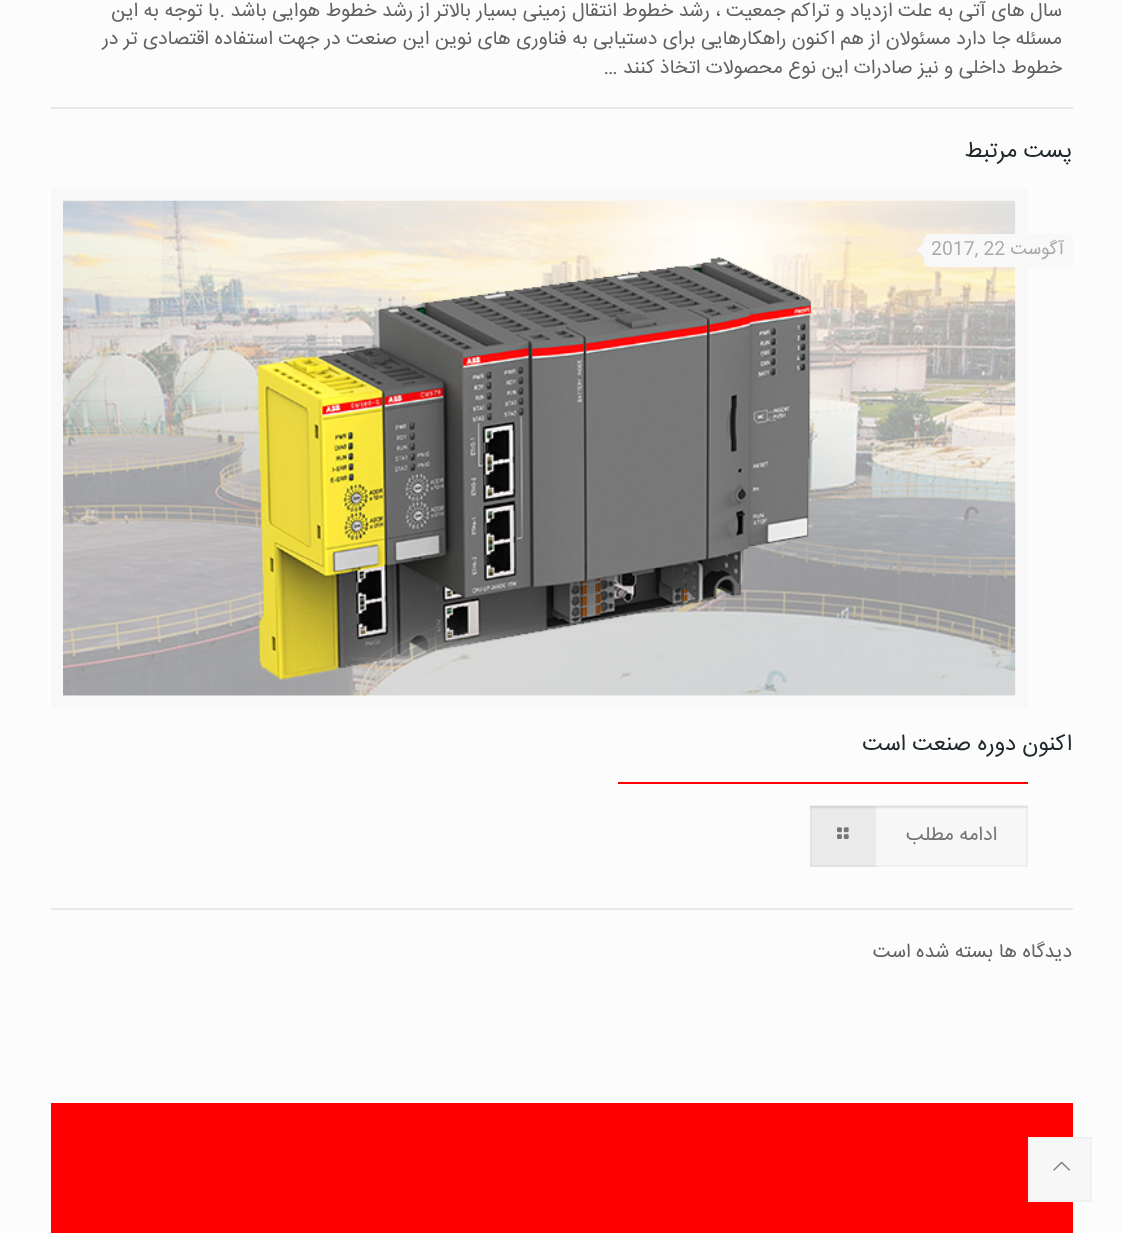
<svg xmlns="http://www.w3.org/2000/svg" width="1122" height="1233">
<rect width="100%" height="100%" fill="#fcfcfc"/>
<text x="1062" y="16" style="font-family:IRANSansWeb;font-size:19.5px;direction:rtl;fill:#626262">سال های آتی به علت ازدیاد و تراکم جمعیت ، رشد خطوط انتقال زمینی بسیار بالاتر از رشد خطوط هوایی باشد .با توجه به این</text>
<text x="1062" y="44" style="font-family:IRANSansWeb;font-size:19.5px;direction:rtl;fill:#626262">مسئله جا دارد مسئولان از هم اکنون راهکارهایی برای دستیابی به فناوری های نوین این صنعت در جهت استفاده اقتصادی تر در</text>
<text x="1062" y="73" style="font-family:IRANSansWeb;font-size:19.5px;direction:rtl;fill:#626262">خطوط داخلی و نیز صادرات این نوع محصولات اتخاذ کنند …</text>
<rect x="51" y="107" width="1022" height="2" fill="#e8e8e8"/>
<text x="1072" y="157" style="font-family:IRANSansWeb;font-size:22.5px;direction:rtl;fill:#20292c">پست مرتبط</text>
<rect x="57" y="195" width="965" height="507" fill="none" stroke="#f8f8f8" stroke-width="12"/>
<image x="63" y="200" width="953" height="496" href="media/1.png"/>
<rect x="924" y="234" width="149" height="33" rx="6" fill="#f8f8f8"/>
<text x="1064" y="254" style="font-family:IRANSansWeb;font-size:18px;direction:rtl;fill:#a8a8a8">آگوست</text>
<text x="931" y="254" style="font-family:IRANSansWeb;font-size:18px;fill:#a8a8a8">2017, 22</text>
<path d="M924 242.5v15l-7.5-7.5z" fill="#f8f8f8"/>
<text x="1072" y="750" style="font-family:IRANSansWeb;font-size:22.5px;direction:rtl;fill:#20292c">اکنون دوره صنعت است</text>
<rect x="618" y="782" width="410" height="2" fill="#f00"/>
<rect x="810" y="806" width="218" height="61" fill="#f7f7f7"/>
<image x="810" y="805" width="218" height="4" href="media/2.png"/>
<rect x="811" y="807" width="216" height="59" fill="none" stroke="#00000008" stroke-width="2"/>
<text x="997" y="840" style="font-family:IRANSansWeb;font-size:19.5px;direction:rtl;fill:#747474">ادامه مطلب</text>
<rect x="810" y="806" width="66" height="61" fill="#0000000d"/>
<image x="837" y="827" width="12" height="12" href="media/3.png"/>
<rect x="51" y="908" width="1022" height="2" fill="#e8e8e8"/>
<text x="1072" y="957" style="font-family:IRANSansWeb;font-size:19.5px;direction:rtl;fill:#626262">دیدگاه ها بسته شده است</text>
<rect x="51" y="1103" width="1022" height="130" fill="#f00"/>
<rect x="1029" y="1138" width="62" height="63" fill="#f7f7f7" stroke="#f0f0f0" stroke-width="2"/>
<image x="1053" y="1161" width="17" height="10" href="media/4.png"/>
</svg>
